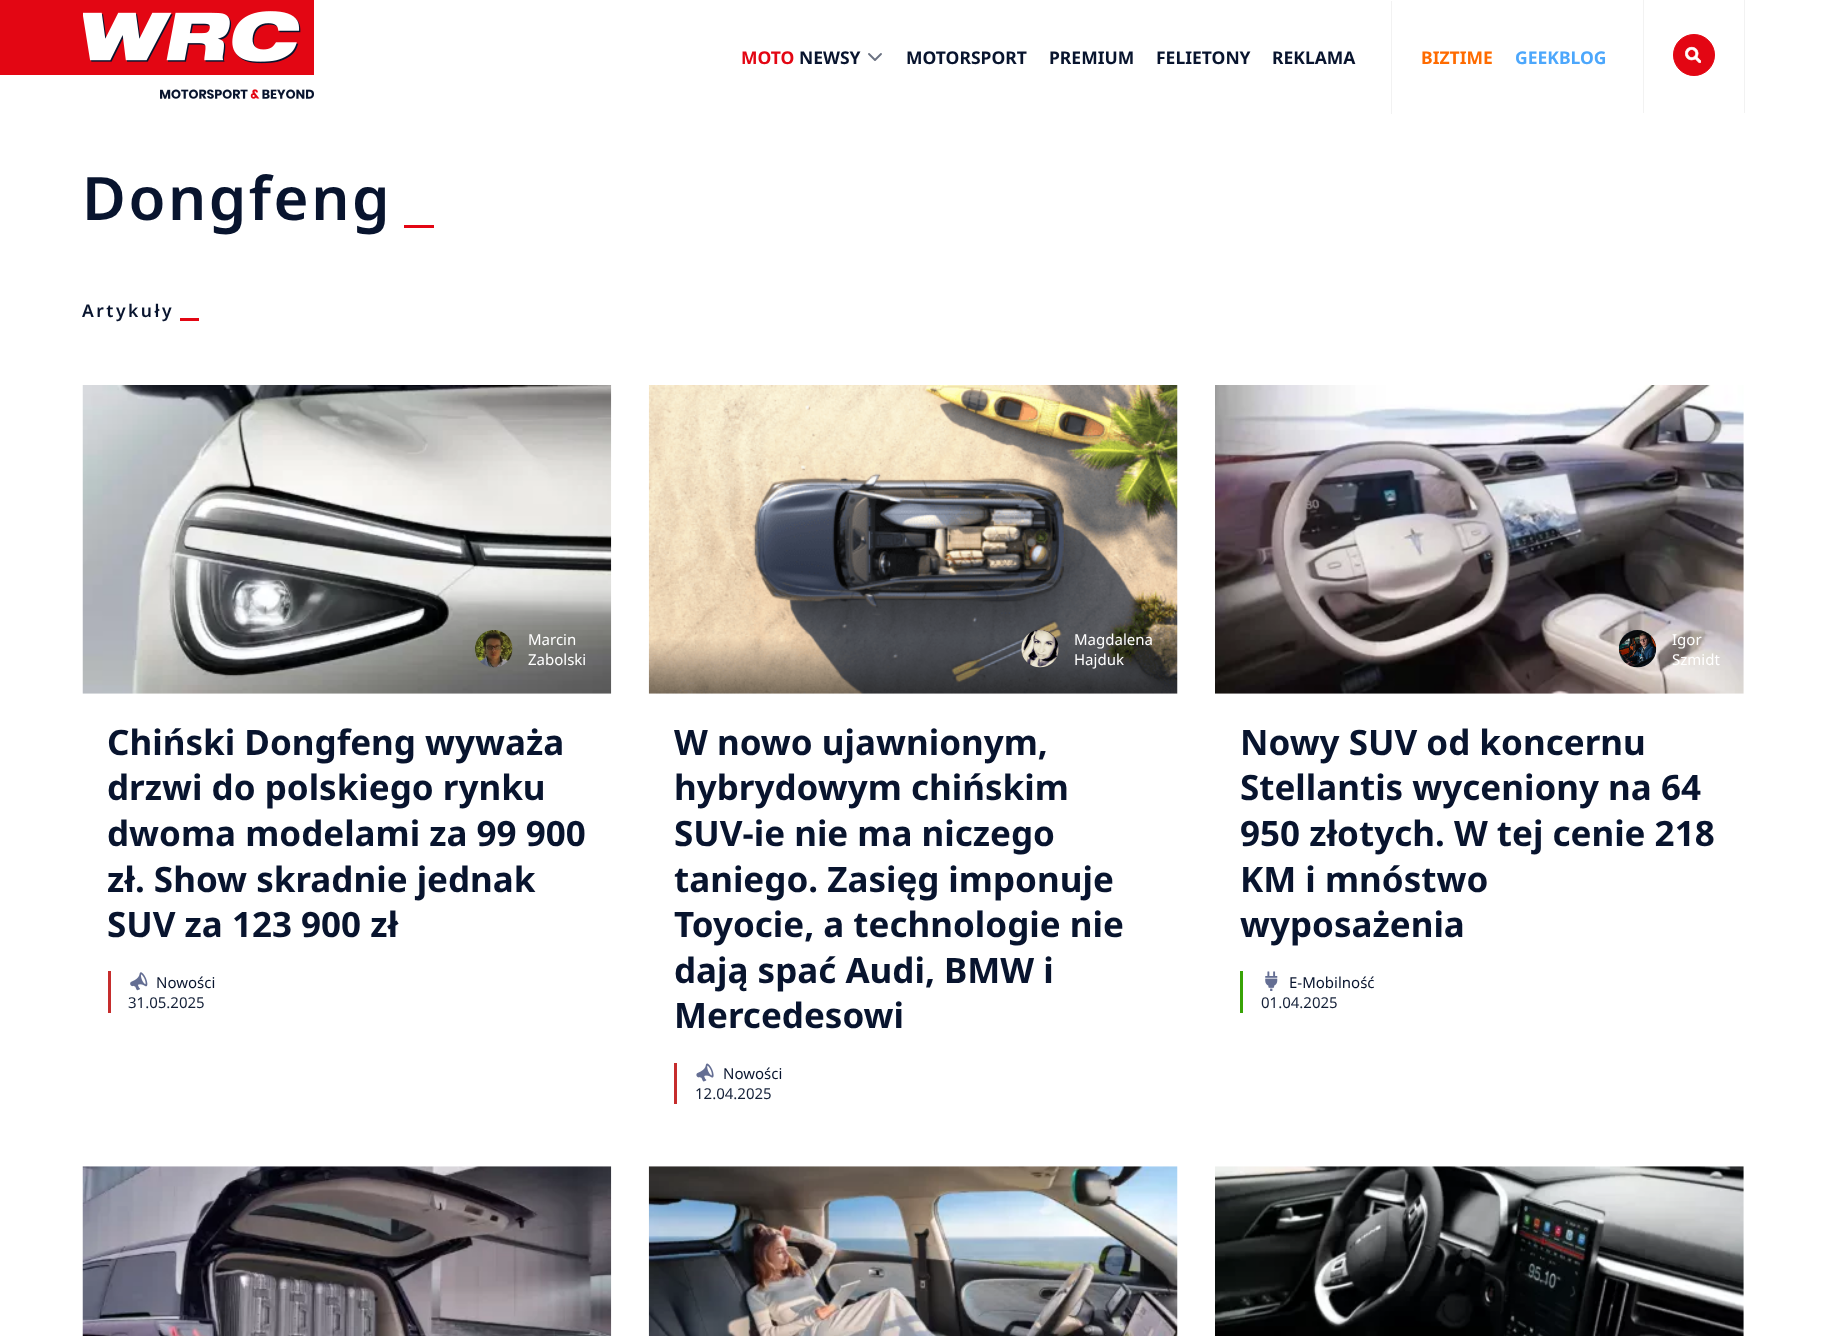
<svg xmlns="http://www.w3.org/2000/svg" width="1826" height="1336">
<rect width="100%" height="100%" fill="#fff"/>
<rect width="314" height="75" fill="#e30613"/>
<image x="83" y="11" width="231" height="88" href="media/1.png"/>
<text x="741" y="64" style="font-family:Noto Sans;font-size:17.5px;font-weight:bold;fill:#e30613">MOTO</text>
<text x="799" y="64" style="font-family:Noto Sans;font-size:17.5px;font-weight:bold;fill:#08142e">NEWSY</text>
<path d="M881 54l-6 6l-6-6" fill="none" stroke="#6b7282" stroke-width="1.9" stroke-linecap="round" stroke-linejoin="round"/>
<text x="906" y="64" style="font-family:Noto Sans;font-size:17.5px;font-weight:bold;fill:#08142e">MOTORSPORT</text>
<text x="1049" y="64" style="font-family:Noto Sans;font-size:17.5px;font-weight:bold;fill:#08142e">PREMIUM</text>
<text x="1156" y="64" style="font-family:Noto Sans;font-size:17.5px;font-weight:bold;fill:#08142e">FELIETONY</text>
<text x="1272" y="64" style="font-family:Noto Sans;font-size:17.5px;font-weight:bold;fill:#08142e">REKLAMA</text>
<rect x="1391" y="1" width="1" height="113" fill="#f2f2f2"/>
<text x="1421" y="64" style="font-family:Noto Sans;font-size:17.5px;font-weight:bold;fill:#ff6b00">BIZTIME</text>
<text x="1515" y="64" style="font-family:Noto Sans;font-size:17.5px;font-weight:bold;fill:#4ca7fc">GEEKBLOG</text>
<rect x="1643" width="1" height="113" fill="#f2f2f2"/>
<circle cx="1694" cy="55" r="20.5" fill="#e30613" stroke="#e30613"/>
<image x="1685" y="46" width="16" height="18" href="media/2.png"/>
<rect x="1744" width="1" height="113" fill="#f2f2f2"/>
<text x="82" y="220" style="font-family:Noto Sans;font-size:60px;font-weight:600;letter-spacing:2.5px;fill:#08142e">Dongfeng</text>
<rect x="404" y="225" width="30" height="3" fill="#e30613"/>
<text x="82" y="317" style="font-family:Noto Sans;font-size:17.5px;font-weight:600;letter-spacing:2.5px;fill:#08142e">Artykuły</text>
<rect x="180" y="318" width="19" height="3" fill="#e30613"/>
<image x="82" y="385" width="530" height="309" href="media/3.png"/>
<image x="475" y="630" width="38" height="38" href="media/4.png"/>
<text x="528" y="645" style="font-family:Noto Sans;font-size:15px;fill:#fff">Marcin</text>
<text x="528" y="665" style="font-family:Noto Sans;font-size:15px;fill:#fff">Zabolski</text>
<text x="107" y="755" style="font-family:Noto Sans;font-size:35px;font-weight:bold;fill:#08142e">Chiński Dongfeng wyważa</text>
<text x="107" y="800" style="font-family:Noto Sans;font-size:35px;font-weight:bold;fill:#08142e">drzwi do polskiego rynku</text>
<text x="107" y="846" style="font-family:Noto Sans;font-size:35px;font-weight:bold;fill:#08142e">dwoma modelami za 99 900</text>
<text x="107" y="892" style="font-family:Noto Sans;font-size:35px;font-weight:bold;fill:#08142e">zł. Show skradnie jednak</text>
<text x="107" y="937" style="font-family:Noto Sans;font-size:35px;font-weight:bold;fill:#08142e">SUV za 123 900 zł</text>
<rect x="108" y="971" width="3" height="42" fill="#c62d2d"/>
<image x="130" y="972" width="18" height="19" href="media/5.png"/>
<text x="156" y="988" style="font-family:Noto Sans;font-size:15px;fill:#08142e">Nowości</text>
<text x="128" y="1008" style="font-family:Noto Sans;font-size:15px;fill:#142038">31.05.2025</text>
<image x="648" y="385" width="530" height="309" href="media/6.png"/>
<image x="1021" y="630" width="38" height="38" href="media/7.png"/>
<text x="1074" y="645" style="font-family:Noto Sans;font-size:15px;fill:#fff">Magdalena</text>
<text x="1074" y="665" style="font-family:Noto Sans;font-size:15px;fill:#fff">Hajduk</text>
<text x="674" y="755" style="font-family:Noto Sans;font-size:35px;font-weight:bold;fill:#08142e">W nowo ujawnionym,</text>
<text x="674" y="800" style="font-family:Noto Sans;font-size:35px;font-weight:bold;fill:#08142e">hybrydowym chińskim</text>
<text x="674" y="846" style="font-family:Noto Sans;font-size:35px;font-weight:bold;fill:#08142e">SUV-ie nie ma niczego</text>
<text x="674" y="892" style="font-family:Noto Sans;font-size:35px;font-weight:bold;fill:#08142e">taniego. Zasięg imponuje</text>
<text x="674" y="937" style="font-family:Noto Sans;font-size:35px;font-weight:bold;fill:#08142e">Toyocie, a technologie nie</text>
<text x="674" y="983" style="font-family:Noto Sans;font-size:35px;font-weight:bold;fill:#08142e">dają spać Audi, BMW i</text>
<text x="674" y="1028" style="font-family:Noto Sans;font-size:35px;font-weight:bold;fill:#08142e">Mercedesowi</text>
<rect x="674" y="1063" width="3" height="41" fill="#c62d2d"/>
<image x="696" y="1063" width="18" height="19" href="media/8.png"/>
<text x="723" y="1079" style="font-family:Noto Sans;font-size:15px;fill:#08142e">Nowości</text>
<text x="695" y="1099" style="font-family:Noto Sans;font-size:15px;fill:#142038">12.04.2025</text>
<image x="1215" y="385" width="529" height="309" href="media/9.png"/>
<image x="1618" y="630" width="39" height="38" href="media/10.png"/>
<text x="1672" y="645" style="font-family:Noto Sans;font-size:15px;fill:#fff">Igor</text>
<text x="1672" y="665" style="font-family:Noto Sans;font-size:15px;fill:#fff">Szmidt</text>
<text x="1240" y="755" style="font-family:Noto Sans;font-size:35px;font-weight:bold;fill:#08142e">Nowy SUV od koncernu</text>
<text x="1240" y="800" style="font-family:Noto Sans;font-size:35px;font-weight:bold;fill:#08142e">Stellantis wyceniony na 64</text>
<text x="1240" y="846" style="font-family:Noto Sans;font-size:35px;font-weight:bold;fill:#08142e">950 złotych. W tej cenie 218</text>
<text x="1240" y="892" style="font-family:Noto Sans;font-size:35px;font-weight:bold;fill:#08142e">KM i mnóstwo</text>
<text x="1240" y="937" style="font-family:Noto Sans;font-size:35px;font-weight:bold;fill:#08142e">wyposażenia</text>
<rect x="1240" y="971" width="3" height="42" fill="#38a306"/>
<image x="1265" y="971" width="13" height="20" href="media/11.png"/>
<text x="1289" y="988" style="font-family:Noto Sans;font-size:15px;fill:#08142e">E-Mobilność</text>
<text x="1261" y="1008" style="font-family:Noto Sans;font-size:15px;fill:#142038">01.04.2025</text>
<image x="82" y="1166" width="530" height="170" href="media/12.png"/>
<image x="648" y="1166" width="530" height="170" href="media/13.png"/>
<image x="1215" y="1166" width="529" height="170" href="media/14.png"/>
</svg>
